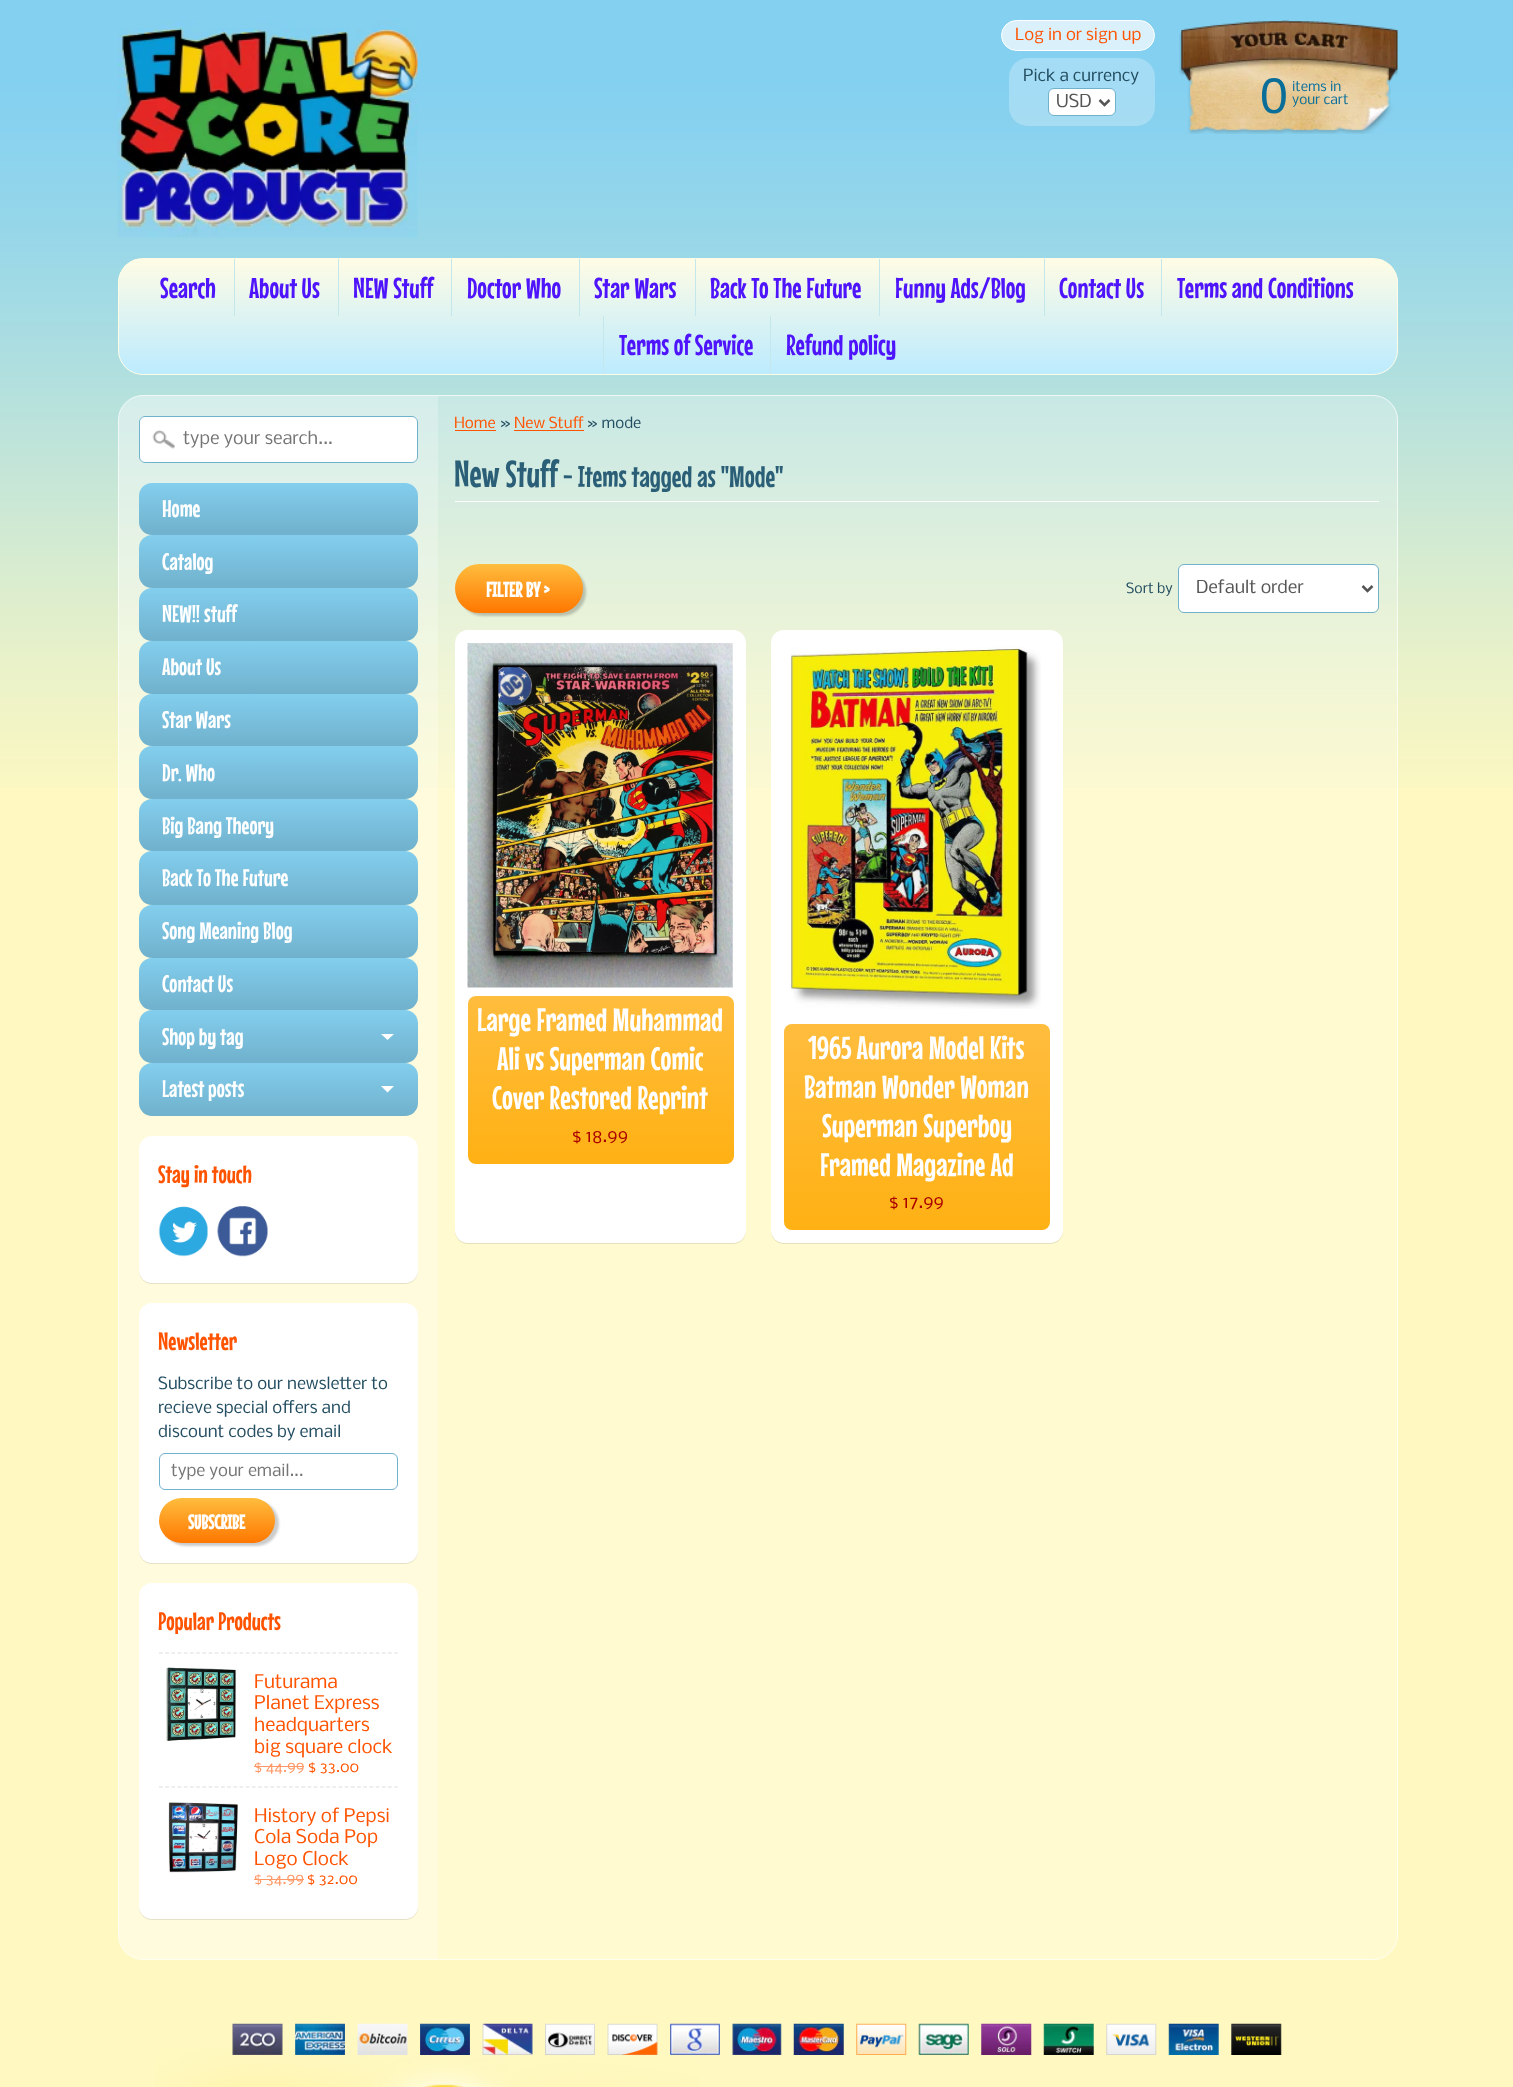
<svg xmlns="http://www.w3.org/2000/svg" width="1513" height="2087">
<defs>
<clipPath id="clip1"><rect x="118" y="258" width="1280" height="117" rx="25"/></clipPath>
<linearGradient id="g1" gradientUnits="userSpaceOnUse" x1="758" y1="259" x2="758" y2="374"><stop offset="0" stop-color="#fffce5"/><stop offset="1" stop-color="#bcebff"/></linearGradient>
<linearGradient id="g2" gradientUnits="userSpaceOnUse" x1="278" y1="483" x2="278" y2="535"><stop offset="0" stop-color="#83ceee"/><stop offset="1" stop-color="#70b1cc"/></linearGradient>
<linearGradient id="g3" gradientUnits="userSpaceOnUse" x1="278" y1="535" x2="278" y2="588"><stop offset="0" stop-color="#83ceee"/><stop offset="1" stop-color="#70b1cc"/></linearGradient>
<linearGradient id="g4" gradientUnits="userSpaceOnUse" x1="278" y1="588" x2="278" y2="641"><stop offset="0" stop-color="#83ceee"/><stop offset="1" stop-color="#70b1cc"/></linearGradient>
<linearGradient id="g5" gradientUnits="userSpaceOnUse" x1="278" y1="641" x2="278" y2="694"><stop offset="0" stop-color="#83ceee"/><stop offset="1" stop-color="#70b1cc"/></linearGradient>
<linearGradient id="g6" gradientUnits="userSpaceOnUse" x1="278" y1="694" x2="278" y2="746"><stop offset="0" stop-color="#83ceee"/><stop offset="1" stop-color="#70b1cc"/></linearGradient>
<linearGradient id="g7" gradientUnits="userSpaceOnUse" x1="278" y1="746" x2="278" y2="799"><stop offset="0" stop-color="#83ceee"/><stop offset="1" stop-color="#70b1cc"/></linearGradient>
<linearGradient id="g8" gradientUnits="userSpaceOnUse" x1="278" y1="799" x2="278" y2="851"><stop offset="0" stop-color="#83ceee"/><stop offset="1" stop-color="#70b1cc"/></linearGradient>
<linearGradient id="g9" gradientUnits="userSpaceOnUse" x1="278" y1="851" x2="278" y2="905"><stop offset="0" stop-color="#83ceee"/><stop offset="1" stop-color="#70b1cc"/></linearGradient>
<linearGradient id="g10" gradientUnits="userSpaceOnUse" x1="278" y1="905" x2="278" y2="958"><stop offset="0" stop-color="#83ceee"/><stop offset="1" stop-color="#70b1cc"/></linearGradient>
<linearGradient id="g11" gradientUnits="userSpaceOnUse" x1="278" y1="958" x2="278" y2="1010"><stop offset="0" stop-color="#83ceee"/><stop offset="1" stop-color="#70b1cc"/></linearGradient>
<linearGradient id="g12" gradientUnits="userSpaceOnUse" x1="278" y1="1010" x2="278" y2="1063"><stop offset="0" stop-color="#83ceee"/><stop offset="1" stop-color="#70b1cc"/></linearGradient>
<linearGradient id="g13" gradientUnits="userSpaceOnUse" x1="278" y1="1063" x2="278" y2="1116"><stop offset="0" stop-color="#83ceee"/><stop offset="1" stop-color="#70b1cc"/></linearGradient>
<linearGradient id="g14" gradientUnits="userSpaceOnUse" x1="217" y1="1498" x2="217" y2="1543"><stop offset="0" stop-color="#ffbd3e"/><stop offset="1" stop-color="#f70"/></linearGradient>
<linearGradient id="g15" gradientUnits="userSpaceOnUse" x1="519" y1="564" x2="519" y2="613"><stop offset="0" stop-color="#ffbd3e"/><stop offset="1" stop-color="#f70"/></linearGradient>
<linearGradient id="g16" gradientUnits="userSpaceOnUse" x1="601" y1="996" x2="601" y2="1164"><stop offset="0" stop-color="#ffbd3e"/><stop offset="1" stop-color="#ffb114"/></linearGradient>
<linearGradient id="g17" gradientUnits="userSpaceOnUse" x1="917" y1="1024" x2="917" y2="1230"><stop offset="0" stop-color="#ffbd3e"/><stop offset="1" stop-color="#ffb114"/></linearGradient>
</defs>
<rect width="100%" height="100%" fill="#fff9c1"/>
<image x="0" y="0" width="1513" height="788" href="media/1.png"/>
<image x="117" y="20" width="301" height="218" href="media/2.png"/>
<rect x="1001.5" y="20.5" width="153" height="30" rx="15" fill="#daf1fb" stroke="#fff"/>
<text x="1015" y="40" style="font-family:Nobile;font-size:16px;fill:#ff5300">Log in or sign up</text>
<rect x="1009" y="58" width="146" height="68" rx="19" fill="#ffffff40"/>
<text x="1023" y="81" style="font-family:Nobile;font-size:16px;fill:#234d61">Pick a currency</text>
<rect x="1048.5" y="88.5" width="67" height="27" rx="5.5" fill="#fff" stroke="#70b1cc"/>
<path d="M1099.5 100l5 5l5-5" fill="none" stroke="#555" stroke-width="2.5"/>
<text x="1056" y="107" style="font-family:Nobile;font-size:17px;fill:#555">USD</text>
<image x="1179" y="20" width="219" height="114" href="media/3.png"/>
<text x="1260" y="113" style="font-family:Liberation Sans;font-size:50px;fill:#0a6e99">0</text>
<text x="1292" y="91" style="font-family:Nobile;font-size:13px;fill:#0a6e99">items in</text>
<text x="1292" y="104" style="font-family:Nobile;font-size:13px;fill:#0a6e99">your cart</text>
<g clip-path="url(#clip1)">
<rect x="118" y="259" width="1280" height="115" fill="url(#g1)"/>
</g>
<rect x="118.5" y="258.5" width="1279" height="116" rx="24.5" fill="none" stroke="#fffce5"/>
<text x="160" y="298" style="font-family:Mouse Memoirs;font-size:28.75px;fill:#4e14fb">Search</text>
<rect x="234" y="259" width="1" height="57" fill="#c3e7ea"/>
<text x="249" y="298" style="font-family:Mouse Memoirs;font-size:28.75px;fill:#4e14fb">About Us</text>
<rect x="338" y="259" width="1" height="57" fill="#c3e7ea"/>
<text x="353" y="298" style="font-family:Mouse Memoirs;font-size:28.75px;fill:#4e14fb">NEW Stuff</text>
<rect x="451" y="259" width="1" height="57" fill="#c3e7ea"/>
<text x="467" y="298" style="font-family:Mouse Memoirs;font-size:28.75px;fill:#4e14fb">Doctor Who</text>
<rect x="579" y="259" width="1" height="57" fill="#c3e7ea"/>
<text x="594" y="298" style="font-family:Mouse Memoirs;font-size:28.75px;fill:#4e14fb">Star Wars</text>
<rect x="695" y="259" width="1" height="57" fill="#c3e7ea"/>
<text x="710" y="298" style="font-family:Mouse Memoirs;font-size:28.75px;fill:#4e14fb">Back To The Future</text>
<rect x="879" y="259" width="1" height="57" fill="#c3e7ea"/>
<text x="895" y="298" style="font-family:Mouse Memoirs;font-size:28.75px;fill:#4e14fb">Funny Ads/Blog</text>
<rect x="1044" y="259" width="1" height="57" fill="#c3e7ea"/>
<text x="1059" y="298" style="font-family:Mouse Memoirs;font-size:28.75px;fill:#4e14fb">Contact Us</text>
<rect x="1161" y="259" width="1" height="57" fill="#c3e7ea"/>
<text x="1177" y="298" style="font-family:Mouse Memoirs;font-size:28.75px;fill:#4e14fb">Terms and Conditions</text>
<rect x="603" y="316" width="1" height="58" fill="#c3e7ea"/>
<text x="619" y="355" style="font-family:Mouse Memoirs;font-size:28.75px;fill:#4e14fb">Terms of Service</text>
<rect x="770" y="316" width="1" height="58" fill="#c3e7ea"/>
<text x="786" y="355" style="font-family:Mouse Memoirs;font-size:28.75px;fill:#4e14fb">Refund policy</text>
<rect x="118" y="395" width="1280" height="1565" rx="25" fill="#ffffff40"/>
<rect x="118.5" y="395.5" width="1279" height="1564" rx="24.5" fill="none" stroke="#ffffffb3"/>
<path d="M143 396h295v1563h-295c-13.5 0-24-10.5-24-24v-1515c0-13.5 10.5-24 24-24z" fill="#ffffff40"/>
<rect x="139" y="416" width="279" height="47" rx="6" fill="#fff"/>
<image x="152" y="430" width="23" height="19" href="media/4.png"/>
<rect x="139.5" y="416.5" width="278" height="46" rx="5.5" fill="none" stroke="#70b1cc"/>
<text x="183" y="444" style="font-family:Nobile;font-size:17px;fill:#757575">type your search...</text>
<rect x="139" y="483" width="279" height="52" rx="13" fill="url(#g2)"/>
<text x="162" y="517" style="font-family:Mouse Memoirs;font-size:24px;fill:#fff">Home</text>
<rect x="139" y="535" width="279" height="53" rx="13" fill="url(#g3)"/>
<text x="162" y="570" style="font-family:Mouse Memoirs;font-size:24px;fill:#fff">Catalog</text>
<rect x="139" y="588" width="279" height="53" rx="13" fill="url(#g4)"/>
<text x="162" y="622" style="font-family:Mouse Memoirs;font-size:24px;fill:#fff">NEW!! stuff</text>
<rect x="139" y="641" width="279" height="53" rx="13" fill="url(#g5)"/>
<text x="162" y="675" style="font-family:Mouse Memoirs;font-size:24px;fill:#fff">About Us</text>
<rect x="139" y="694" width="279" height="52" rx="13" fill="url(#g6)"/>
<text x="162" y="728" style="font-family:Mouse Memoirs;font-size:24px;fill:#fff">Star Wars</text>
<rect x="139" y="746" width="279" height="53" rx="13" fill="url(#g7)"/>
<text x="162" y="781" style="font-family:Mouse Memoirs;font-size:24px;fill:#fff">Dr. Who</text>
<rect x="139" y="799" width="279" height="52" rx="13" fill="url(#g8)"/>
<text x="162" y="834" style="font-family:Mouse Memoirs;font-size:24px;fill:#fff">Big Bang Theory</text>
<rect x="139" y="851" width="279" height="54" rx="13" fill="url(#g9)"/>
<text x="162" y="886" style="font-family:Mouse Memoirs;font-size:24px;fill:#fff">Back To The Future</text>
<rect x="139" y="905" width="279" height="53" rx="13" fill="url(#g10)"/>
<text x="162" y="939" style="font-family:Mouse Memoirs;font-size:24px;fill:#fff">Song Meaning Blog</text>
<rect x="139" y="958" width="279" height="52" rx="13" fill="url(#g11)"/>
<text x="162" y="992" style="font-family:Mouse Memoirs;font-size:24px;fill:#fff">Contact Us</text>
<rect x="139" y="1010" width="279" height="53" rx="13" fill="url(#g12)"/>
<text x="162" y="1045" style="font-family:Mouse Memoirs;font-size:24px;fill:#fff">Shop by tag</text>
<path d="M381 1034h13l-6.5 6z" fill="#fff"/>
<rect x="139" y="1063" width="279" height="53" rx="13" fill="url(#g13)"/>
<text x="162" y="1097" style="font-family:Mouse Memoirs;font-size:24px;fill:#fff">Latest posts</text>
<path d="M381 1086h13l-6.5 6.5z" fill="#fff"/>
<rect x="139" y="1138" width="279" height="146" rx="13" fill="#0000001a" filter="blur(0.5px)"/>
<rect x="139" y="1136" width="279" height="147" rx="13" fill="#fff"/>
<text x="158" y="1183" style="font-family:Mouse Memoirs;font-size:25px;fill:#ff5300">Stay in touch</text>
<image x="158" y="1206" width="50" height="51" href="media/5.png"/>
<image x="217" y="1206" width="51" height="51" href="media/6.png"/>
<rect x="139" y="1304" width="279" height="260" rx="13" fill="#0000001a" filter="blur(0.5px)"/>
<rect x="139" y="1303" width="279" height="260" rx="13" fill="#fff"/>
<text x="158" y="1350" style="font-family:Mouse Memoirs;font-size:25px;fill:#ff5300">Newsletter</text>
<text x="158" y="1389" style="font-family:Nobile;font-size:16px;fill:#234d61">Subscribe to our newsletter to</text>
<text x="158" y="1413" style="font-family:Nobile;font-size:16px;fill:#234d61">recieve special offers and</text>
<text x="158" y="1437" style="font-family:Nobile;font-size:16px;fill:#234d61">discount codes by email</text>
<rect x="159.5" y="1453.5" width="238" height="36" rx="5.5" fill="none" stroke="#70b1cc"/>
<text x="171" y="1476" style="font-family:Nobile;font-size:16px;fill:#757575">type your email...</text>
<rect x="163" y="1501" width="116" height="45" rx="22.5" fill="#00000033" filter="blur(1px)"/>
<rect x="159" y="1498" width="116" height="45" rx="22.5" fill="url(#g14)"/>
<text x="188" y="1529" style="font-family:Mouse Memoirs;font-size:20px;font-weight:bold;fill:#fff">SUBSCRIBE</text>
<rect x="139" y="1584" width="279" height="336" rx="13" fill="#0000001a" filter="blur(0.5px)"/>
<rect x="139" y="1583" width="279" height="336" rx="13" fill="#fff"/>
<text x="158" y="1630" style="font-family:Mouse Memoirs;font-size:25px;fill:#ff5300">Popular Products</text>
<path d="M159 1653h238.5" fill="none" stroke="#ddd" stroke-width="1.2" stroke-dasharray="3.75 2.44"/>
<image x="166" y="1667" width="71" height="74" href="media/7.png"/>
<text x="254" y="1688" style="font-family:Nobile;font-size:18px;fill:#ff5300">Futurama</text>
<text x="254" y="1709" style="font-family:Nobile;font-size:18px;fill:#ff5300">Planet Express</text>
<text x="254" y="1731" style="font-family:Nobile;font-size:18px;fill:#ff5300">headquarters</text>
<text x="254" y="1753" style="font-family:Nobile;font-size:18px;fill:#ff5300">big square clock</text>
<text x="254" y="1772" style="font-family:Nobile;font-size:14.5px;fill:#ff9866">$ 44.99</text>
<rect x="254" y="1766" width="50" height="1" fill="#ff9866"/>
<text x="308" y="1772" style="font-family:Nobile;font-size:14.5px;fill:#ff5300">$ 33.00</text>
<path d="M159 1787h238.5" fill="none" stroke="#ddd" stroke-width="1.2" stroke-dasharray="3.75 2.44"/>
<image x="168" y="1802" width="70" height="71" href="media/8.png"/>
<text x="254" y="1822" style="font-family:Nobile;font-size:18px;fill:#ff5300">History of Pepsi</text>
<text x="254" y="1843" style="font-family:Nobile;font-size:18px;fill:#ff5300">Cola Soda Pop</text>
<text x="254" y="1865" style="font-family:Nobile;font-size:18px;fill:#ff5300">Logo Clock</text>
<text x="254" y="1884" style="font-family:Nobile;font-size:14.5px;fill:#ff9866">$ 34.99</text>
<rect x="254" y="1879" width="50" height="1" fill="#ff9866"/>
<text x="307" y="1884" style="font-family:Nobile;font-size:14.5px;fill:#ff5300">$ 32.00</text>
<text x="454" y="428" style="font-family:Nobile;font-size:14.5px;fill:#ff5300">Home</text>
<rect x="455" y="430" width="41" height="1" fill="#ff5300"/>
<text x="500" y="428" style="font-family:Nobile;font-size:14.5px;fill:#234d61">»</text>
<text x="514" y="428" style="font-family:Nobile;font-size:14.5px;fill:#ff5300">New Stuff</text>
<rect x="514" y="430" width="70" height="1" fill="#ff5300"/>
<text x="587" y="428" style="font-family:Nobile;font-size:14.5px;fill:#234d61">» mode</text>
<rect x="455" y="501" width="924" height="1" fill="#fff"/>
<text x="454" y="487" style="font-family:Mouse Memoirs;font-size:37.5px;fill:#2b5f77">New Stuff</text>
<text x="563" y="487" style="font-family:Mouse Memoirs;font-size:30px;fill:#2b5f77">- Items tagged as "Mode"</text>
<rect x="459" y="568" width="127" height="48" rx="24" fill="#00000033" filter="blur(1px)"/>
<rect x="455" y="564" width="128" height="49" rx="24.5" fill="url(#g15)"/>
<text x="486" y="597" style="font-family:Mouse Memoirs;font-size:21px;font-weight:bold;fill:#fff">FILTER BY &gt;</text>
<text x="1126" y="593" style="font-family:Nobile;font-size:13.5px;fill:#234d61">Sort by</text>
<rect x="1178.5" y="564.5" width="200" height="48" rx="5.5" fill="#fff" stroke="#70b1cc"/>
<path d="M1362.5 586l5 5l5-5" fill="none" stroke="#555" stroke-width="2.5"/>
<text x="1196" y="593" style="font-family:Nobile;font-size:17px;fill:#555">Default order</text>
<rect x="455" y="631" width="291" height="613" rx="13" fill="#0000001a" filter="blur(0.5px)"/>
<rect x="455" y="630" width="291" height="613" rx="13" fill="#fff"/>
<image x="467" y="642" width="267" height="346" href="media/9.png"/>
<rect x="468" y="996" width="266" height="168" rx="8" fill="url(#g16)"/>
<text x="477" y="1031" style="font-family:Mouse Memoirs;font-size:32.5px;fill:#fff">Large Framed Muhammad</text>
<text x="497" y="1070" style="font-family:Mouse Memoirs;font-size:32.5px;fill:#fff">Ali vs Superman Comic</text>
<text x="492" y="1109" style="font-family:Mouse Memoirs;font-size:32.5px;fill:#fff">Cover Restored Reprint</text>
<text x="572" y="1142" style="font-family:Nobile;font-size:17px;fill:#a00">$ 18.99</text>
<rect x="771" y="631" width="292" height="613" rx="13" fill="#0000001a" filter="blur(0.5px)"/>
<rect x="771" y="630" width="292" height="613" rx="13" fill="#fff"/>
<image x="790" y="646" width="251" height="363" href="media/10.png"/>
<rect x="784" y="1024" width="266" height="206" rx="8" fill="url(#g17)"/>
<text x="808" y="1059" style="font-family:Mouse Memoirs;font-size:32.5px;fill:#fff">1965 Aurora Model Kits</text>
<text x="804" y="1098" style="font-family:Mouse Memoirs;font-size:32.5px;fill:#fff">Batman Wonder Woman</text>
<text x="822" y="1137" style="font-family:Mouse Memoirs;font-size:32.5px;fill:#fff">Superman Superboy</text>
<text x="820" y="1176" style="font-family:Mouse Memoirs;font-size:32.5px;fill:#fff">Framed Magazine Ad</text>
<text x="889" y="1208" style="font-family:Nobile;font-size:17px;fill:#a00">$ 17.99</text>
<image x="154" y="2048" width="545" height="39" href="media/11.png"/>
<image x="232" y="2023" width="51" height="32" href="media/12.png"/>
<image x="295" y="2023" width="50" height="32" href="media/13.png"/>
<image x="357" y="2023" width="51" height="32" href="media/14.png"/>
<image x="420" y="2023" width="50" height="32" href="media/15.png"/>
<image x="482" y="2023" width="51" height="32" href="media/16.png"/>
<image x="545" y="2023" width="50" height="32" href="media/17.png"/>
<image x="607" y="2023" width="51" height="32" href="media/18.png"/>
<image x="670" y="2023" width="50" height="32" href="media/19.png"/>
<image x="732" y="2023" width="50" height="32" href="media/20.png"/>
<image x="793" y="2023" width="51" height="32" href="media/21.png"/>
<image x="856" y="2023" width="51" height="32" href="media/22.png"/>
<image x="918" y="2023" width="51" height="32" href="media/23.png"/>
<image x="981" y="2023" width="51" height="32" href="media/24.png"/>
<image x="1043" y="2023" width="51" height="32" href="media/25.png"/>
<image x="1106" y="2023" width="51" height="32" href="media/26.png"/>
<image x="1168" y="2023" width="51" height="32" href="media/27.png"/>
<image x="1231" y="2023" width="51" height="32" href="media/28.png"/>
</svg>
